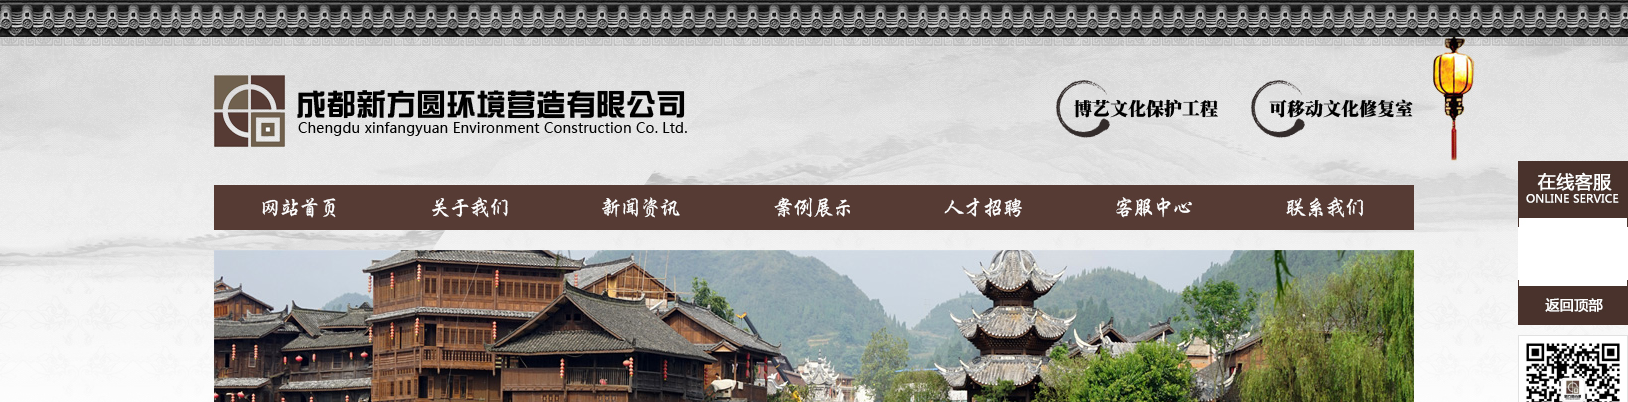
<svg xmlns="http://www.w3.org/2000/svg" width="1628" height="402">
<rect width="100%" height="100%" fill="#fff"/>
<image x="0" y="0" width="1628" height="402" href="media/1.png"/>
<image x="214" y="75" width="473" height="72" href="media/2.png"/>
<image x="1056" y="80" width="162" height="58" href="media/3.png"/>
<image x="1251" y="80" width="162" height="58" href="media/4.png"/>
<rect x="214" y="185" width="1200" height="45" fill="#563b34"/>
<image x="262" y="197" width="74" height="21" href="media/5.png"/>
<image x="432" y="197" width="76" height="21" href="media/6.png"/>
<image x="602" y="197" width="78" height="21" href="media/7.png"/>
<image x="774" y="197" width="76" height="20" href="media/8.png"/>
<image x="944" y="197" width="78" height="20" href="media/9.png"/>
<image x="1116" y="197" width="76" height="21" href="media/10.png"/>
<image x="1286" y="197" width="77" height="21" href="media/11.png"/>
<image x="214" y="250" width="1200" height="152" href="media/12.png"/>
<image x="1518" y="161" width="110" height="66" href="media/13.png"/>
<rect x="1518" y="227" width="110" height="53" fill="#fff"/>
<image x="1518" y="280" width="110" height="45" href="media/14.png"/>
<rect x="1518.5" y="335.5" width="109" height="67" fill="none" stroke="#e1e1e1"/>
<image x="1519" y="336" width="108" height="66" href="media/15.png"/>
</svg>
